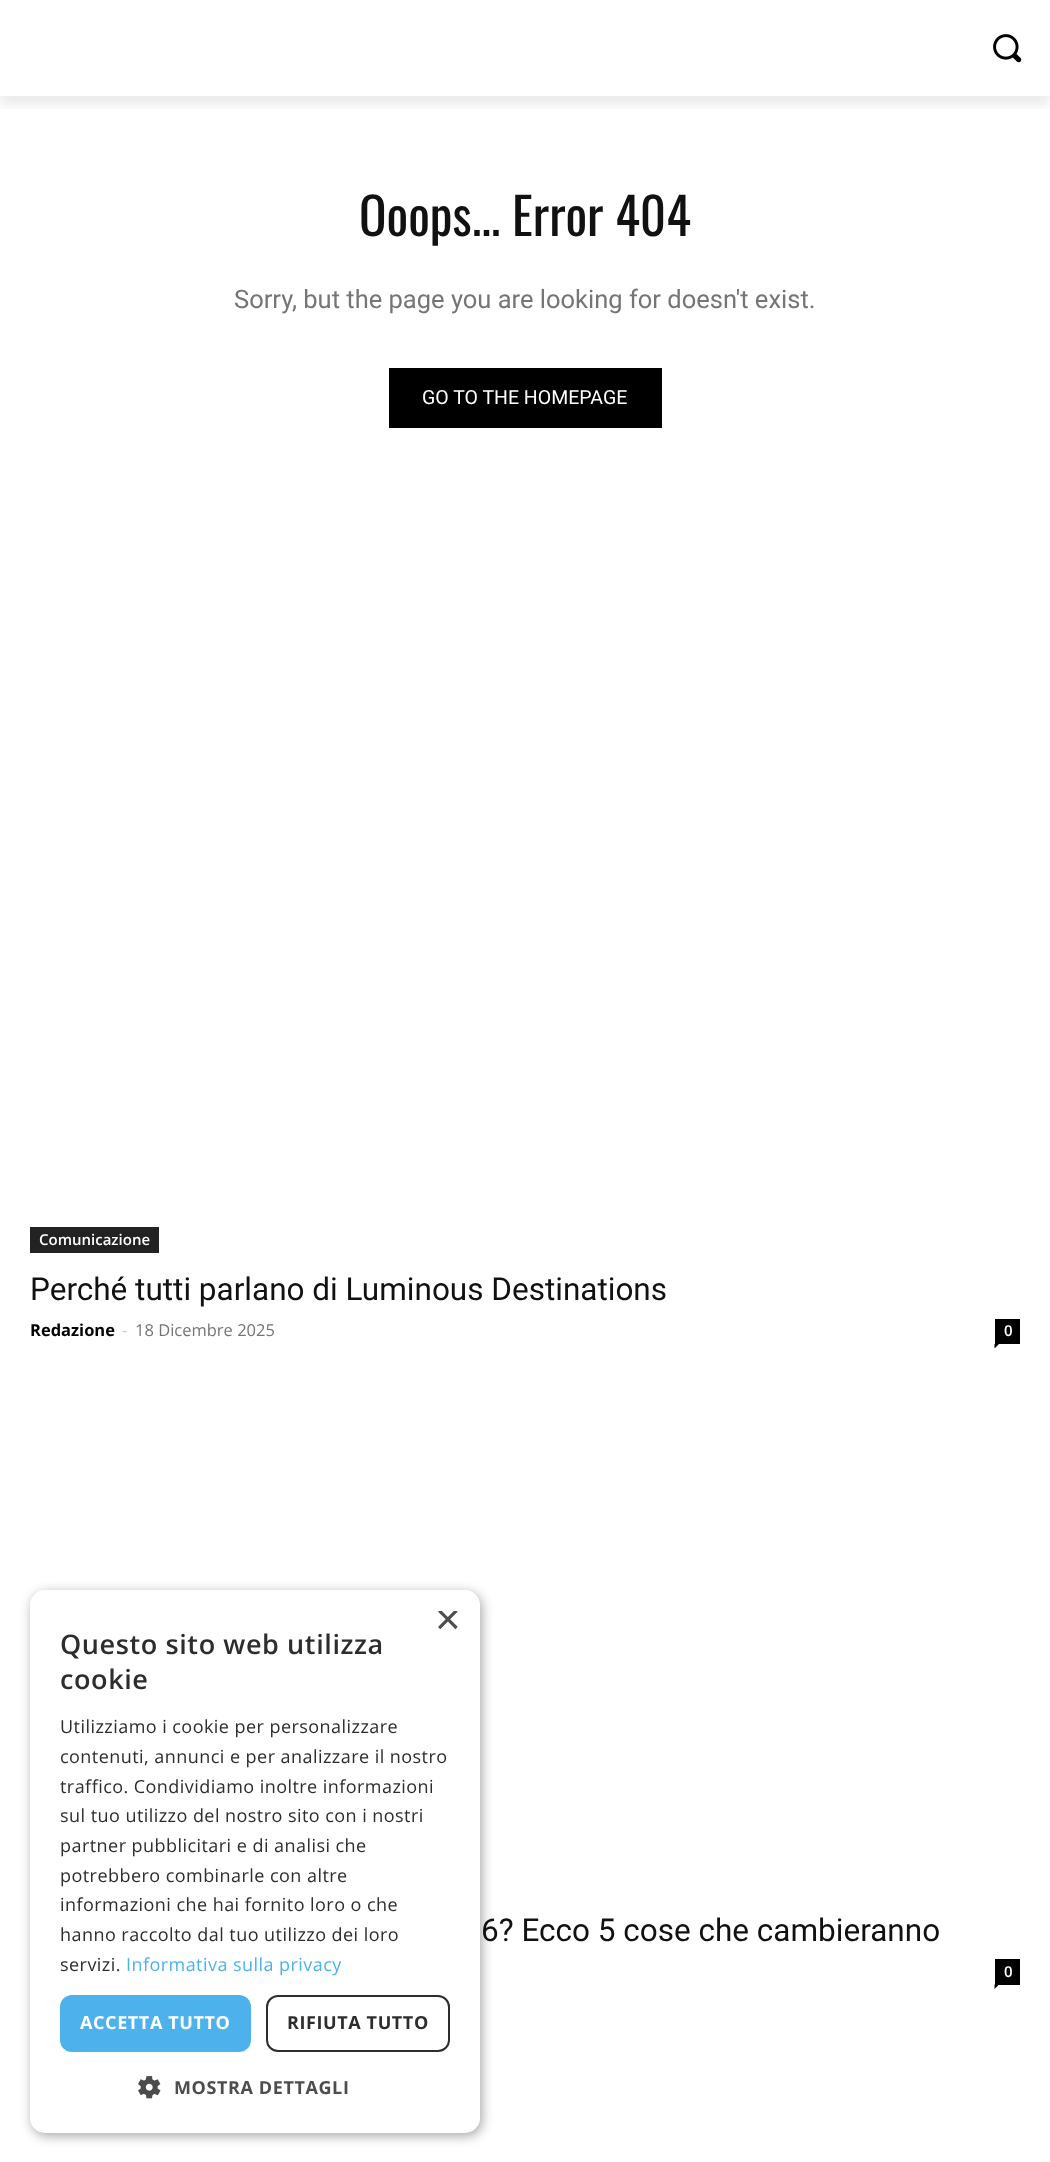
<svg xmlns="http://www.w3.org/2000/svg" width="1050" height="2162" viewBox="0 0 1050 2162">
  <defs>
    <clipPath id="clip1"><rect x="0" y="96" width="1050" height="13"/></clipPath>
    <filter id="blur1" x="-50%" y="-200%" width="200%" height="500%"><feGaussianBlur stdDeviation="6"/></filter>
    <clipPath id="clip2"><rect x="435" y="1611" width="23" height="23"/></clipPath>
  </defs>
  <rect width="100%" height="100%" fill="#ffffff"/>
  <image x="993" y="34" width="29" height="29" href="img1.png"/>
  <g clip-path="url(#clip1)">
    <rect x="0" y="9" width="1050" height="96" fill="#000000" fill-opacity="0.08" filter="url(#blur1)"/>
  </g>
  <text x="359" y="236" font-family="Oswald" font-size="51" fill="#111111">Ooops... Error 404</text>
  <text x="234" y="308" font-family="Roboto" font-size="25.5" fill="#757575">Sorry, but the page you are looking for doesn't exist.</text>
  <rect x="389" y="368" width="273" height="60" fill="#000000"/>
  <text x="422" y="404" font-family="Roboto" font-size="19.5" fill="#ffffff">GO TO THE HOMEPAGE</text>
  <rect x="30" y="1227" width="129" height="26" fill="#222222"/>
  <text x="39" y="1245" font-family="Open Sans" font-size="15" font-weight="600" fill="#ffffff">Comunicazione</text>
  <text x="30" y="1300" font-family="Roboto" font-size="31.5" fill="#111111">Perché tutti parlano di Luminous Destinations</text>
  <text x="30" y="1336" font-family="Open Sans" font-size="16.5" font-weight="bold" fill="#000000">Redazione</text>
  <text x="122" y="1336" font-family="Open Sans" font-size="16.5" fill="#cccccc">-</text>
  <text x="135" y="1336" font-family="Open Sans" font-size="16.5" fill="#757575">18 Dicembre 2025</text>
  <rect x="995" y="1319" width="25" height="25" fill="#000000"/>
  <text x="1004" y="1336" font-family="Open Sans" font-size="15" font-weight="600" fill="#ffffff">0</text>
  <path d="M994.5 1344H999L994.5 1348.5Z" fill="#000000"/>
  <text x="481" y="1941" font-family="Roboto" font-size="31.5" fill="#111111">6? Ecco 5 cose che cambieranno</text>
  <rect x="995" y="1959" width="25" height="26" fill="#000000"/>
  <text x="1004" y="1977" font-family="Open Sans" font-size="15" font-weight="600" fill="#ffffff">0</text>
  <path d="M994.5 1984.5H999L994.5 1989Z" fill="#000000"/>
  <rect x="32" y="1593" width="450" height="543" rx="15" fill="#000000" fill-opacity="0.35" filter="url(#blur1)"/>
  <rect x="30" y="1590" width="450" height="543" rx="15" fill="#ffffff"/>
  <g clip-path="url(#clip2)">
    <text x="435" y="1634" font-family="Liberation Sans" font-size="44" fill="#4d4d4d">×</text>
  </g>
  <text x="60" y="1654" font-family="Open Sans" font-size="27" font-weight="600" letter-spacing="0.6" fill="#2d2d2d">Questo sito web utilizza</text>
  <text x="60" y="1689" font-family="Open Sans" font-size="27" font-weight="600" letter-spacing="0.6" fill="#2d2d2d">cookie</text>
  <text x="60" y="1733" font-family="Open Sans" font-size="18" letter-spacing="0.45" fill="#2d2d2d">Utilizziamo i cookie per personalizzare</text>
  <text x="60" y="1763" font-family="Open Sans" font-size="18" letter-spacing="0.45" fill="#2d2d2d">contenuti, annunci e per analizzare il nostro</text>
  <text x="60" y="1793" font-family="Open Sans" font-size="18" letter-spacing="0.45" fill="#2d2d2d">traffico. Condividiamo inoltre informazioni</text>
  <text x="60" y="1822" font-family="Open Sans" font-size="18" letter-spacing="0.45" fill="#2d2d2d">sul tuo utilizzo del nostro sito con i nostri</text>
  <text x="60" y="1852" font-family="Open Sans" font-size="18" letter-spacing="0.45" fill="#2d2d2d">partner pubblicitari e di analisi che</text>
  <text x="60" y="1882" font-family="Open Sans" font-size="18" letter-spacing="0.45" fill="#2d2d2d">potrebbero combinarle con altre</text>
  <text x="60" y="1911" font-family="Open Sans" font-size="18" letter-spacing="0.45" fill="#2d2d2d">informazioni che hai fornito loro o che</text>
  <text x="60" y="1941" font-family="Open Sans" font-size="18" letter-spacing="0.45" fill="#2d2d2d">hanno raccolto dal tuo utilizzo dei loro</text>
  <text x="60" y="1971" font-family="Open Sans" font-size="18" letter-spacing="0.45" fill="#2d2d2d">servizi.</text>
  <text x="126" y="1971" font-family="Open Sans" font-size="18" letter-spacing="0.45" fill="#4db2ec">Informativa sulla privacy</text>
  <rect x="60" y="1995" width="191" height="57" rx="12" fill="#4db2ec"/>
  <text x="80" y="2029" font-family="Open Sans" font-size="18" font-weight="bold" letter-spacing="0.6" fill="#ffffff">ACCETTA TUTTO</text>
  <rect x="267" y="1996" width="182" height="55" rx="11" fill="none" stroke="#2d2d2d" stroke-width="2"/>
  <text x="287" y="2029" font-family="Open Sans" font-size="18" font-weight="bold" letter-spacing="0.6" fill="#2d2d2d">RIFIUTA TUTTO</text>
  <image x="138" y="2076" width="23" height="23" href="img2.png"/>
  <text x="174" y="2094" font-family="Open Sans" font-size="18" font-weight="bold" letter-spacing="0.6" fill="#4d4d4d">MOSTRA DETTAGLI</text>
</svg>
